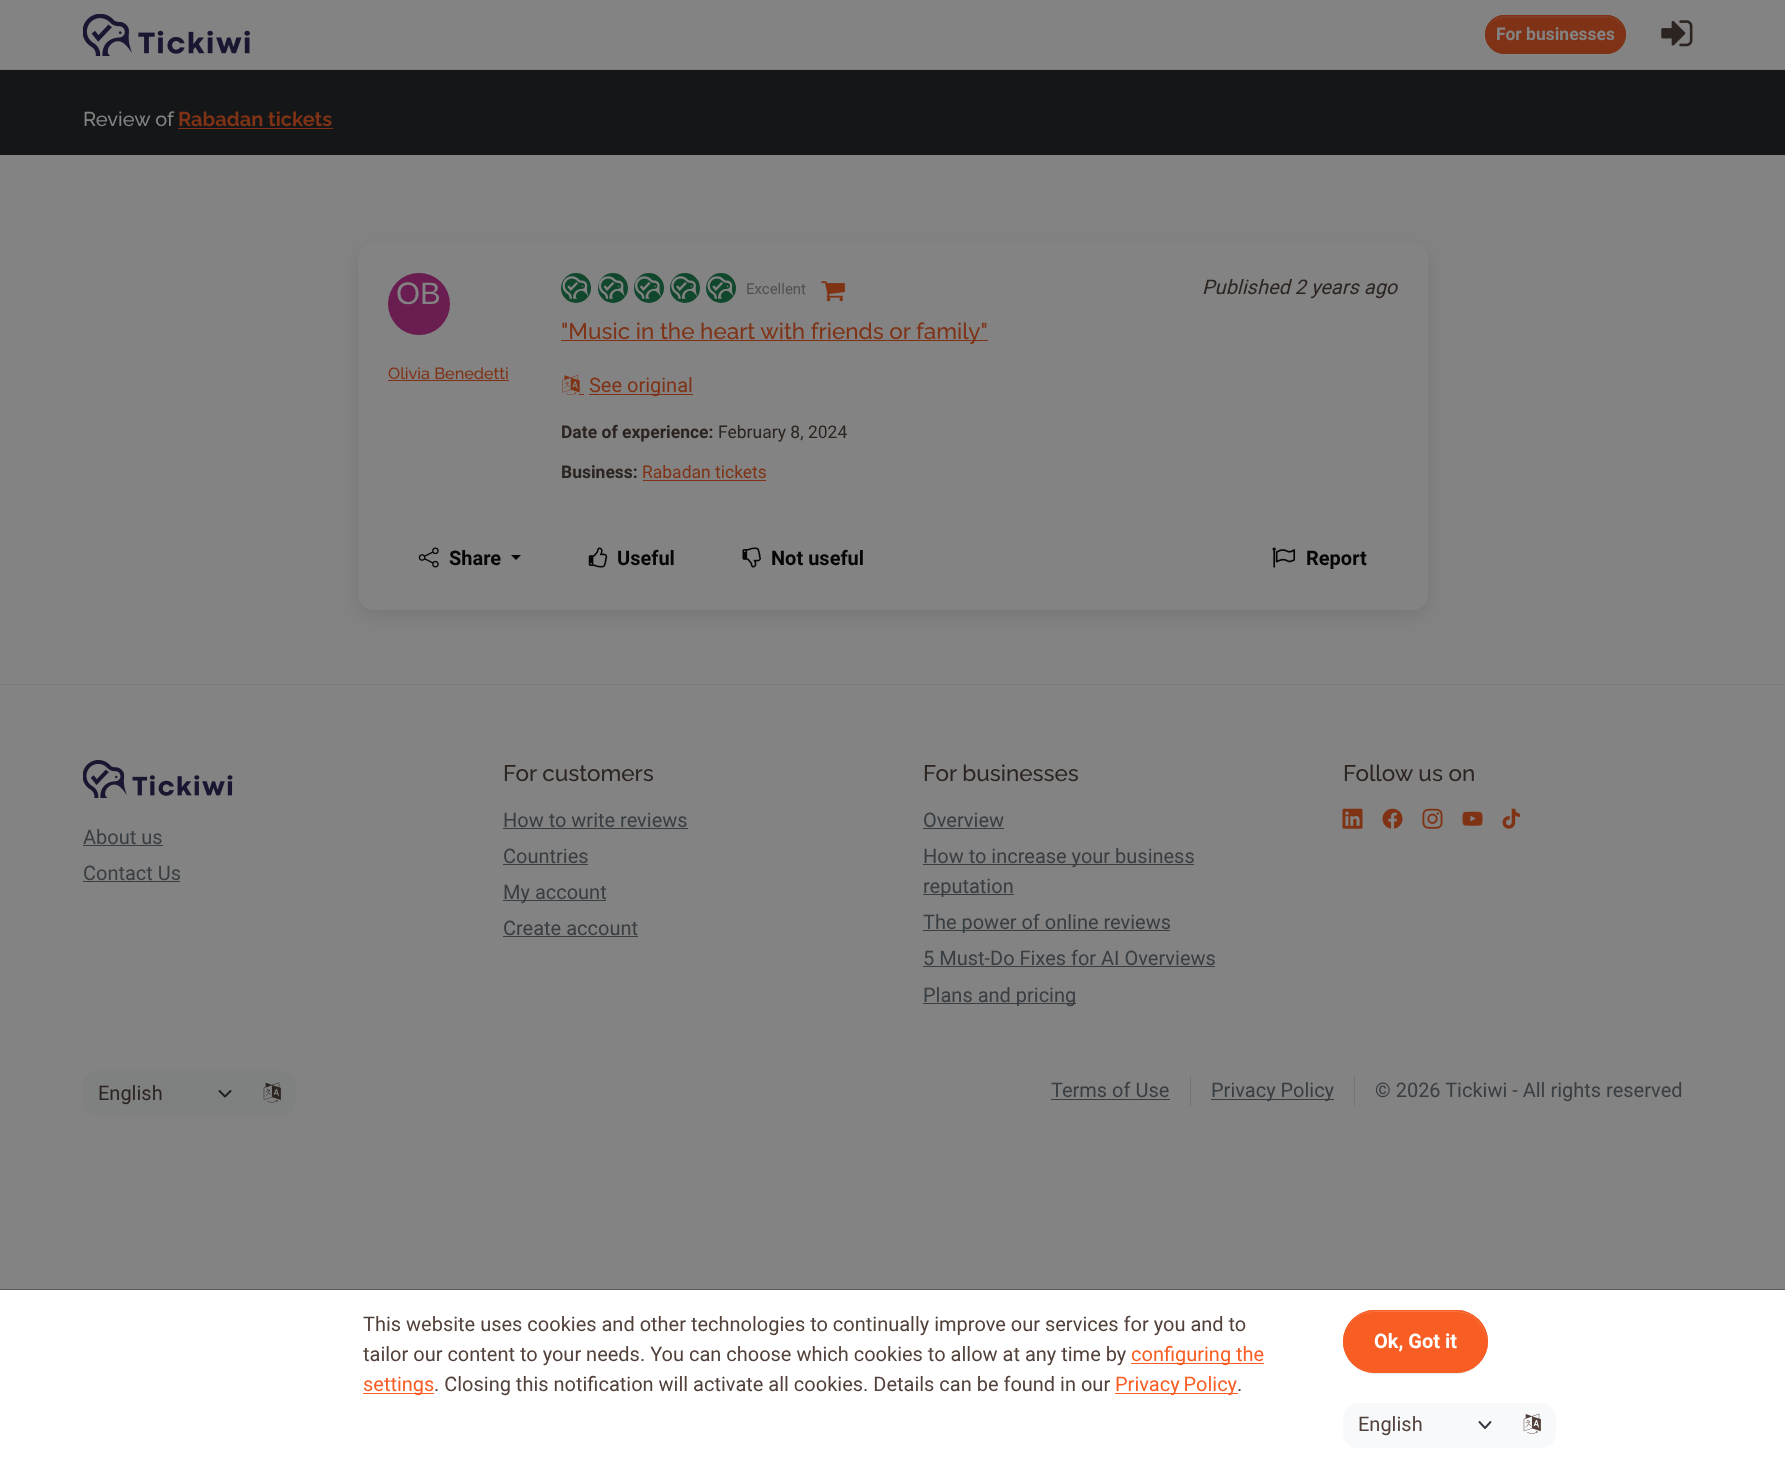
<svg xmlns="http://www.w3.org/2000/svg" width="1785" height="1467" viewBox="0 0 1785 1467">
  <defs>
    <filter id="blur1" x="-50%" y="-200%" width="200%" height="500%"><feGaussianBlur stdDeviation="9.5"/></filter>
    <clipPath id="clip1"><rect x="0" y="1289" width="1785" height="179"/></clipPath>
    <filter id="blur2" x="-50%" y="-200%" width="200%" height="500%"><feGaussianBlur stdDeviation="0.5"/></filter>
  </defs>
  <rect width="100%" height="100%" fill="#838383"/>
  <rect x="0" y="69" width="1785" height="1" fill="#7a7a7a"/>
  <image x="83" y="14" width="167" height="42" href="img1.png"/>
  <rect x="1485" y="15" width="141" height="39" rx="19.5" fill="#7f3215"/>
  <path d="M1504 18H1607C1617 18 1625 26 1625 35V34C1625 24 1617 16 1606 16H1504C1494 16 1486 24 1486 34V35C1486 26 1494 18 1504 18Z" fill="#803e25"/>
  <rect x="1485.5" y="15.5" width="140" height="38" rx="19" fill="none" stroke="#7f3215"/>
  <text x="1496" y="40" font-family="Roboto" font-size="17.5" font-weight="bold" fill="#838383">For businesses</text>
  <image x="1661" y="20" width="32" height="27" href="img2.png"/>
  <rect x="0" y="70" width="1785" height="85" fill="#141618"/>
  <text x="83" y="126" font-family="Raleway" font-size="20" font-weight="100" fill="#838383">Review of</text>
  <text x="178" y="126" font-family="'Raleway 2'" font-size="20" font-weight="100" fill="#7f3215">Rabadan tickets</text>
  <rect x="178" y="128" width="155" height="1" fill="#7f3215"/>
  <rect x="358" y="249" width="1070" height="367" rx="15" fill="#030303" fill-opacity="0.1" filter="url(#blur1)"/>
  <rect x="358" y="243" width="1070" height="367" rx="15" fill="#838383"/>
  <circle cx="419" cy="304" r="31" fill="#691d50"/>
  <text x="396" y="304" font-family="Liberation Sans" font-size="31" fill="#838383">OB</text>
  <text x="388" y="379" font-family="Raleway" font-size="16.25" font-weight="100" fill="#7f3215">Olivia Benedetti</text>
  <rect x="388" y="380" width="121" height="1" fill="#7f3215"/>
  <image x="562" y="280" width="27" height="17" href="img7.png"/>
  <circle cx="576" cy="288" r="15" fill="#10472d"/>
  <image x="562" y="276" width="27" height="23" href="img3.png"/>
  <image x="598" y="277" width="5" height="11" href="img8.png"/>
  <circle cx="613" cy="288" r="15" fill="#10472d"/>
  <image x="598" y="276" width="27" height="23" href="img4.png"/>
  <image x="635" y="278" width="3" height="5" href="img9.png"/>
  <circle cx="649" cy="288" r="15" fill="#10472d"/>
  <image x="635" y="276" width="26" height="23" href="img5.png"/>
  <image x="671" y="280" width="2" height="3" href="img10.png"/>
  <circle cx="685" cy="288" r="15" fill="#10472d"/>
  <image x="671" y="276" width="27" height="23" href="img6.png"/>
  <image x="707" y="280" width="27" height="17" href="img7.png"/>
  <circle cx="721" cy="288" r="15" fill="#10472d"/>
  <image x="707" y="276" width="27" height="23" href="img3.png"/>
  <text x="746" y="294" font-family="Roboto" font-size="15" fill="#505050">Excellent</text>
  <image x="821" y="281" width="24" height="21" href="img11.png"/>
  <text x="1202" y="294" font-family="Roboto" font-size="20" font-style="italic" fill="#2c2420">Published 2 years ago</text>
  <rect x="561" y="340" width="427" height="1" fill="#7f3215"/>
  <text x="561" y="339" font-family="Raleway" font-size="22.5" font-weight="100" fill="#7f3215">"Music in the heart with friends or family"</text>
  <image x="562" y="375" width="18" height="20" href="img12.png"/>
  <rect x="579" y="394" width="5" height="1" fill="#7f3215"/>
  <rect x="589" y="394" width="104" height="1" fill="#7f3215"/>
  <text x="589" y="392" font-family="Roboto" font-size="20" fill="#7f3215">See original</text>
  <text x="561" y="438" font-family="Roboto" font-size="17.5" font-weight="bold" fill="#2c2420">Date of experience:</text>
  <text x="718" y="438" font-family="Roboto" font-size="17.5" fill="#2c2420">February 8, 2024</text>
  <text x="561" y="478" font-family="Roboto" font-size="17.5" font-weight="bold" fill="#2c2420">Business:</text>
  <text x="642" y="478" font-family="Roboto" font-size="17.5" fill="#7f3215">Rabadan tickets</text>
  <rect x="643" y="480" width="123" height="1" fill="#7f3215"/>
  <image x="418" y="547" width="21" height="21" href="img13.png"/>
  <text x="449" y="565" font-family="Roboto" font-size="20" font-weight="bold" fill="#060606">Share</text>
  <path d="M511 555H521L516 560Z" fill="#060606"/>
  <image x="588" y="547" width="20" height="21" href="img14.png"/>
  <text x="617" y="565" font-family="Roboto" font-size="20" font-weight="bold" fill="#060606">Useful</text>
  <image x="742" y="547" width="19" height="21" href="img15.png"/>
  <text x="771" y="565" font-family="Roboto" font-size="20" font-weight="bold" fill="#060606">Not useful</text>
  <image x="1272" y="547" width="24" height="21" href="img16.png"/>
  <text x="1306" y="565" font-family="Roboto" font-size="20" font-weight="bold" fill="#060606">Report</text>
  <rect x="0" y="684" width="1785" height="1" fill="#7a7a7a"/>
  <image x="83" y="760" width="150" height="38" href="img17.png"/>
  <text x="83" y="844" font-family="Roboto" font-size="20" fill="#393e42">About us</text>
  <rect x="83" y="845" width="80" height="1" fill="#393e42"/>
  <text x="83" y="880" font-family="Roboto" font-size="20" fill="#393e42">Contact Us</text>
  <rect x="83" y="881" width="97" height="1" fill="#393e42"/>
  <text x="503" y="781" font-family="Raleway" font-size="22.5" font-weight="100" fill="#2c2420">For customers</text>
  <text x="503" y="827" font-family="Roboto" font-size="20" fill="#393e42">How to write reviews</text>
  <rect x="503" y="828" width="185" height="1" fill="#393e42"/>
  <text x="503" y="863" font-family="Roboto" font-size="20" fill="#393e42">Countries</text>
  <rect x="503" y="864" width="85" height="1" fill="#393e42"/>
  <rect x="503" y="900" width="103" height="1" fill="#393e42"/>
  <text x="503" y="899" font-family="Roboto" font-size="20" fill="#393e42">My account</text>
  <text x="503" y="935" font-family="Roboto" font-size="20" fill="#393e42">Create account</text>
  <rect x="503" y="936" width="135" height="1" fill="#393e42"/>
  <text x="923" y="781" font-family="Raleway" font-size="22.5" font-weight="100" fill="#2c2420">For businesses</text>
  <text x="923" y="827" font-family="Roboto" font-size="20" fill="#393e42">Overview</text>
  <rect x="923" y="828" width="81" height="1" fill="#393e42"/>
  <rect x="923" y="864" width="271" height="1" fill="#393e42"/>
  <text x="923" y="863" font-family="Roboto" font-size="20" fill="#393e42">How to increase your business</text>
  <rect x="923" y="894" width="91" height="1" fill="#393e42"/>
  <text x="923" y="893" font-family="Roboto" font-size="20" fill="#393e42">reputation</text>
  <rect x="923" y="930" width="247" height="1" fill="#393e42"/>
  <text x="923" y="929" font-family="Roboto" font-size="20" fill="#393e42">The power of online reviews</text>
  <text x="923" y="965" font-family="Roboto" font-size="20" fill="#393e42">5 Must-Do Fixes for AI Overviews</text>
  <rect x="923" y="966" width="292" height="1" fill="#393e42"/>
  <rect x="923" y="1003" width="153" height="1" fill="#393e42"/>
  <text x="923" y="1002" font-family="Roboto" font-size="20" fill="#393e42">Plans and pricing</text>
  <text x="1343" y="781" font-family="Raleway" font-size="22.5" font-weight="100" fill="#2c2420">Follow us on</text>
  <image x="1342" y="808" width="21" height="21" href="img18.png"/>
  <image x="1382" y="808" width="21" height="21" href="img19.png"/>
  <image x="1422" y="808" width="21" height="21" href="img20.png"/>
  <image x="1462" y="811" width="21" height="15" href="img21.png"/>
  <image x="1502" y="808" width="18" height="21" href="img22.png"/>
  <rect x="83" y="1050" width="1620" height="1" fill="#808080"/>
  <path d="M249 1071H281C289.5 1071 296 1077.5 296 1086V1101C296 1109.5 289.5 1116 281 1116H249Z" fill="#7f8080"/>
  <path d="M98 1071H250V1116H98C89.5 1116 83 1109.5 83 1101V1086C83 1077.5 89.5 1071 98 1071Z" fill="#7f8080"/>
  <path d="M219.5 1091L225 1096.5L230.5 1091" fill="none" stroke="#1d2023" stroke-width="1.9" stroke-linecap="round" stroke-linejoin="round"/>
  <text x="98" y="1100" font-family="Roboto" font-size="20" fill="#2c2420">English</text>
  <image x="263" y="1082" width="18" height="21" href="img23.png"/>
  <rect x="1190" y="1076" width="1" height="30" fill="#727476"/>
  <text x="1051" y="1097" font-family="Roboto" font-size="20" fill="#393e42">Terms of Use</text>
  <rect x="1051" y="1099" width="119" height="1" fill="#393e42"/>
  <rect x="1354" y="1076" width="1" height="30" fill="#727476"/>
  <rect x="1211" y="1099" width="123" height="1" fill="#393e42"/>
  <text x="1211" y="1097" font-family="Roboto" font-size="20" fill="#393e42">Privacy Policy</text>
  <text x="1375" y="1097" font-family="Roboto" font-size="20" fill="#393e42">© 2026 Tickiwi - All rights reserved</text>
  <rect x="0" y="1289" width="1785" height="1" fill="#5b5b5b"/>
  <g clip-path="url(#clip1)">
    <rect x="0" y="1296" width="1785" height="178" fill="#000000" fill-opacity="0.1" filter="url(#blur1)"/>
  </g>
  <rect x="0" y="1290" width="1785" height="177" fill="#ffffff"/>
  <text x="363" y="1331" font-family="Roboto" font-size="20" fill="#52413a">This website uses cookies and other technologies to continually improve our services for you and to</text>
  <text x="363" y="1361" font-family="Roboto" font-size="20" fill="#52413a">tailor our content to your needs. You can choose which cookies to allow at any time by</text>
  <rect x="1131" y="1363" width="133" height="1" fill="#f85d23"/>
  <text x="1131" y="1361" font-family="Roboto" font-size="20" fill="#f85d23">configuring the</text>
  <rect x="363" y="1393" width="71" height="1" fill="#f85d23"/>
  <text x="363" y="1391" font-family="Roboto" font-size="20" fill="#f85d23">settings</text>
  <text x="434" y="1391" font-family="Roboto" font-size="20" fill="#52413a">. Closing this notification will activate all cookies. Details can be found in our</text>
  <rect x="1115" y="1393" width="123" height="1" fill="#f85d23"/>
  <text x="1115" y="1391" word-spacing="-1" font-family="Roboto" font-size="20" fill="#f85d23">Privacy Policy</text>
  <text x="1237" y="1391" font-family="Roboto" font-size="20" fill="#52413a">.</text>
  <rect x="1343" y="1311" width="145" height="63" rx="31.5" fill="#060606" fill-opacity="0.07" filter="url(#blur2)"/>
  <rect x="1343" y="1310" width="145" height="63" rx="31.5" fill="#f85d23"/>
  <path d="M1374 1312H1456C1473 1312 1486 1326 1486 1342V1341C1486 1324 1473 1311 1456 1311H1374C1357 1311 1344 1324 1344 1341V1342C1344 1326 1357 1312 1374 1312Z" fill="#f97544"/>
  <rect x="1343.5" y="1310.5" width="144" height="62" rx="31" fill="none" stroke="#f85d23"/>
  <text x="1374" y="1348" font-family="Roboto" font-size="20" font-weight="bold" fill="#ffffff">Ok, Got it</text>
  <path d="M1509 1403H1541C1549.5 1403 1556 1409.5 1556 1418V1433C1556 1441.5 1549.5 1448 1541 1448H1509Z" fill="#f8f9fa"/>
  <path d="M1358 1403H1510V1448H1358C1349.5 1448 1343 1441.5 1343 1433V1418C1343 1409.5 1349.5 1403 1358 1403Z" fill="#f8f9fa"/>
  <path d="M1479.5 1422L1485 1428L1490.5 1422" fill="none" stroke="#343a40" stroke-width="1.9" stroke-linecap="round" stroke-linejoin="round"/>
  <text x="1358" y="1431" font-family="Roboto" font-size="20" fill="#52413a">English</text>
  <image x="1523" y="1413" width="18" height="21" href="img24.png"/>
</svg>
